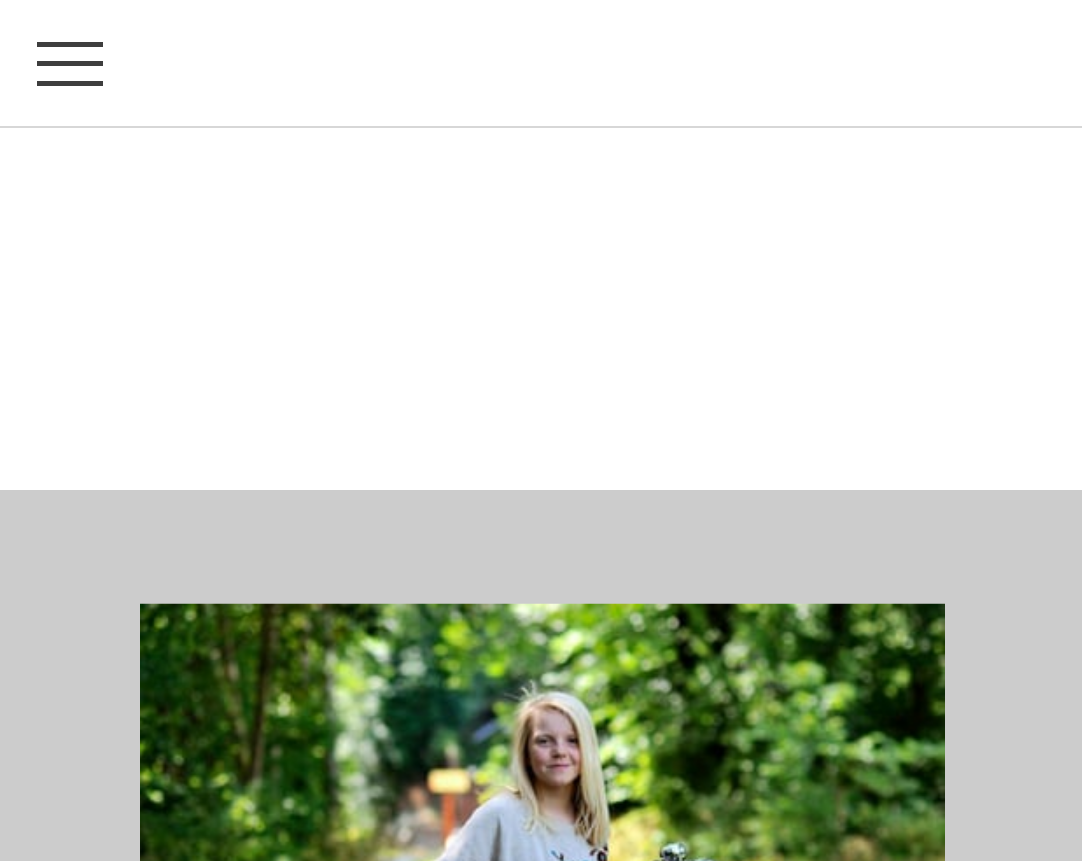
<svg xmlns="http://www.w3.org/2000/svg" width="1082" height="861" viewBox="0 0 1082 861">
  <rect width="100%" height="100%" fill="#ffffff"/>
  <rect x="0" y="126" width="1082" height="2" fill="#d7d7d7"/>
  <rect x="37" y="61" width="66" height="5" fill="#3e3e3e"/>
  <rect x="37" y="42" width="66" height="5" fill="#3e3e3e"/>
  <rect x="37" y="81" width="66" height="5" fill="#3e3e3e"/>
  <rect x="0" y="490" width="1082" height="371" fill="#cccccc"/>
  <image x="140" y="603" width="805" height="258" href="img1.png"/>
</svg>
